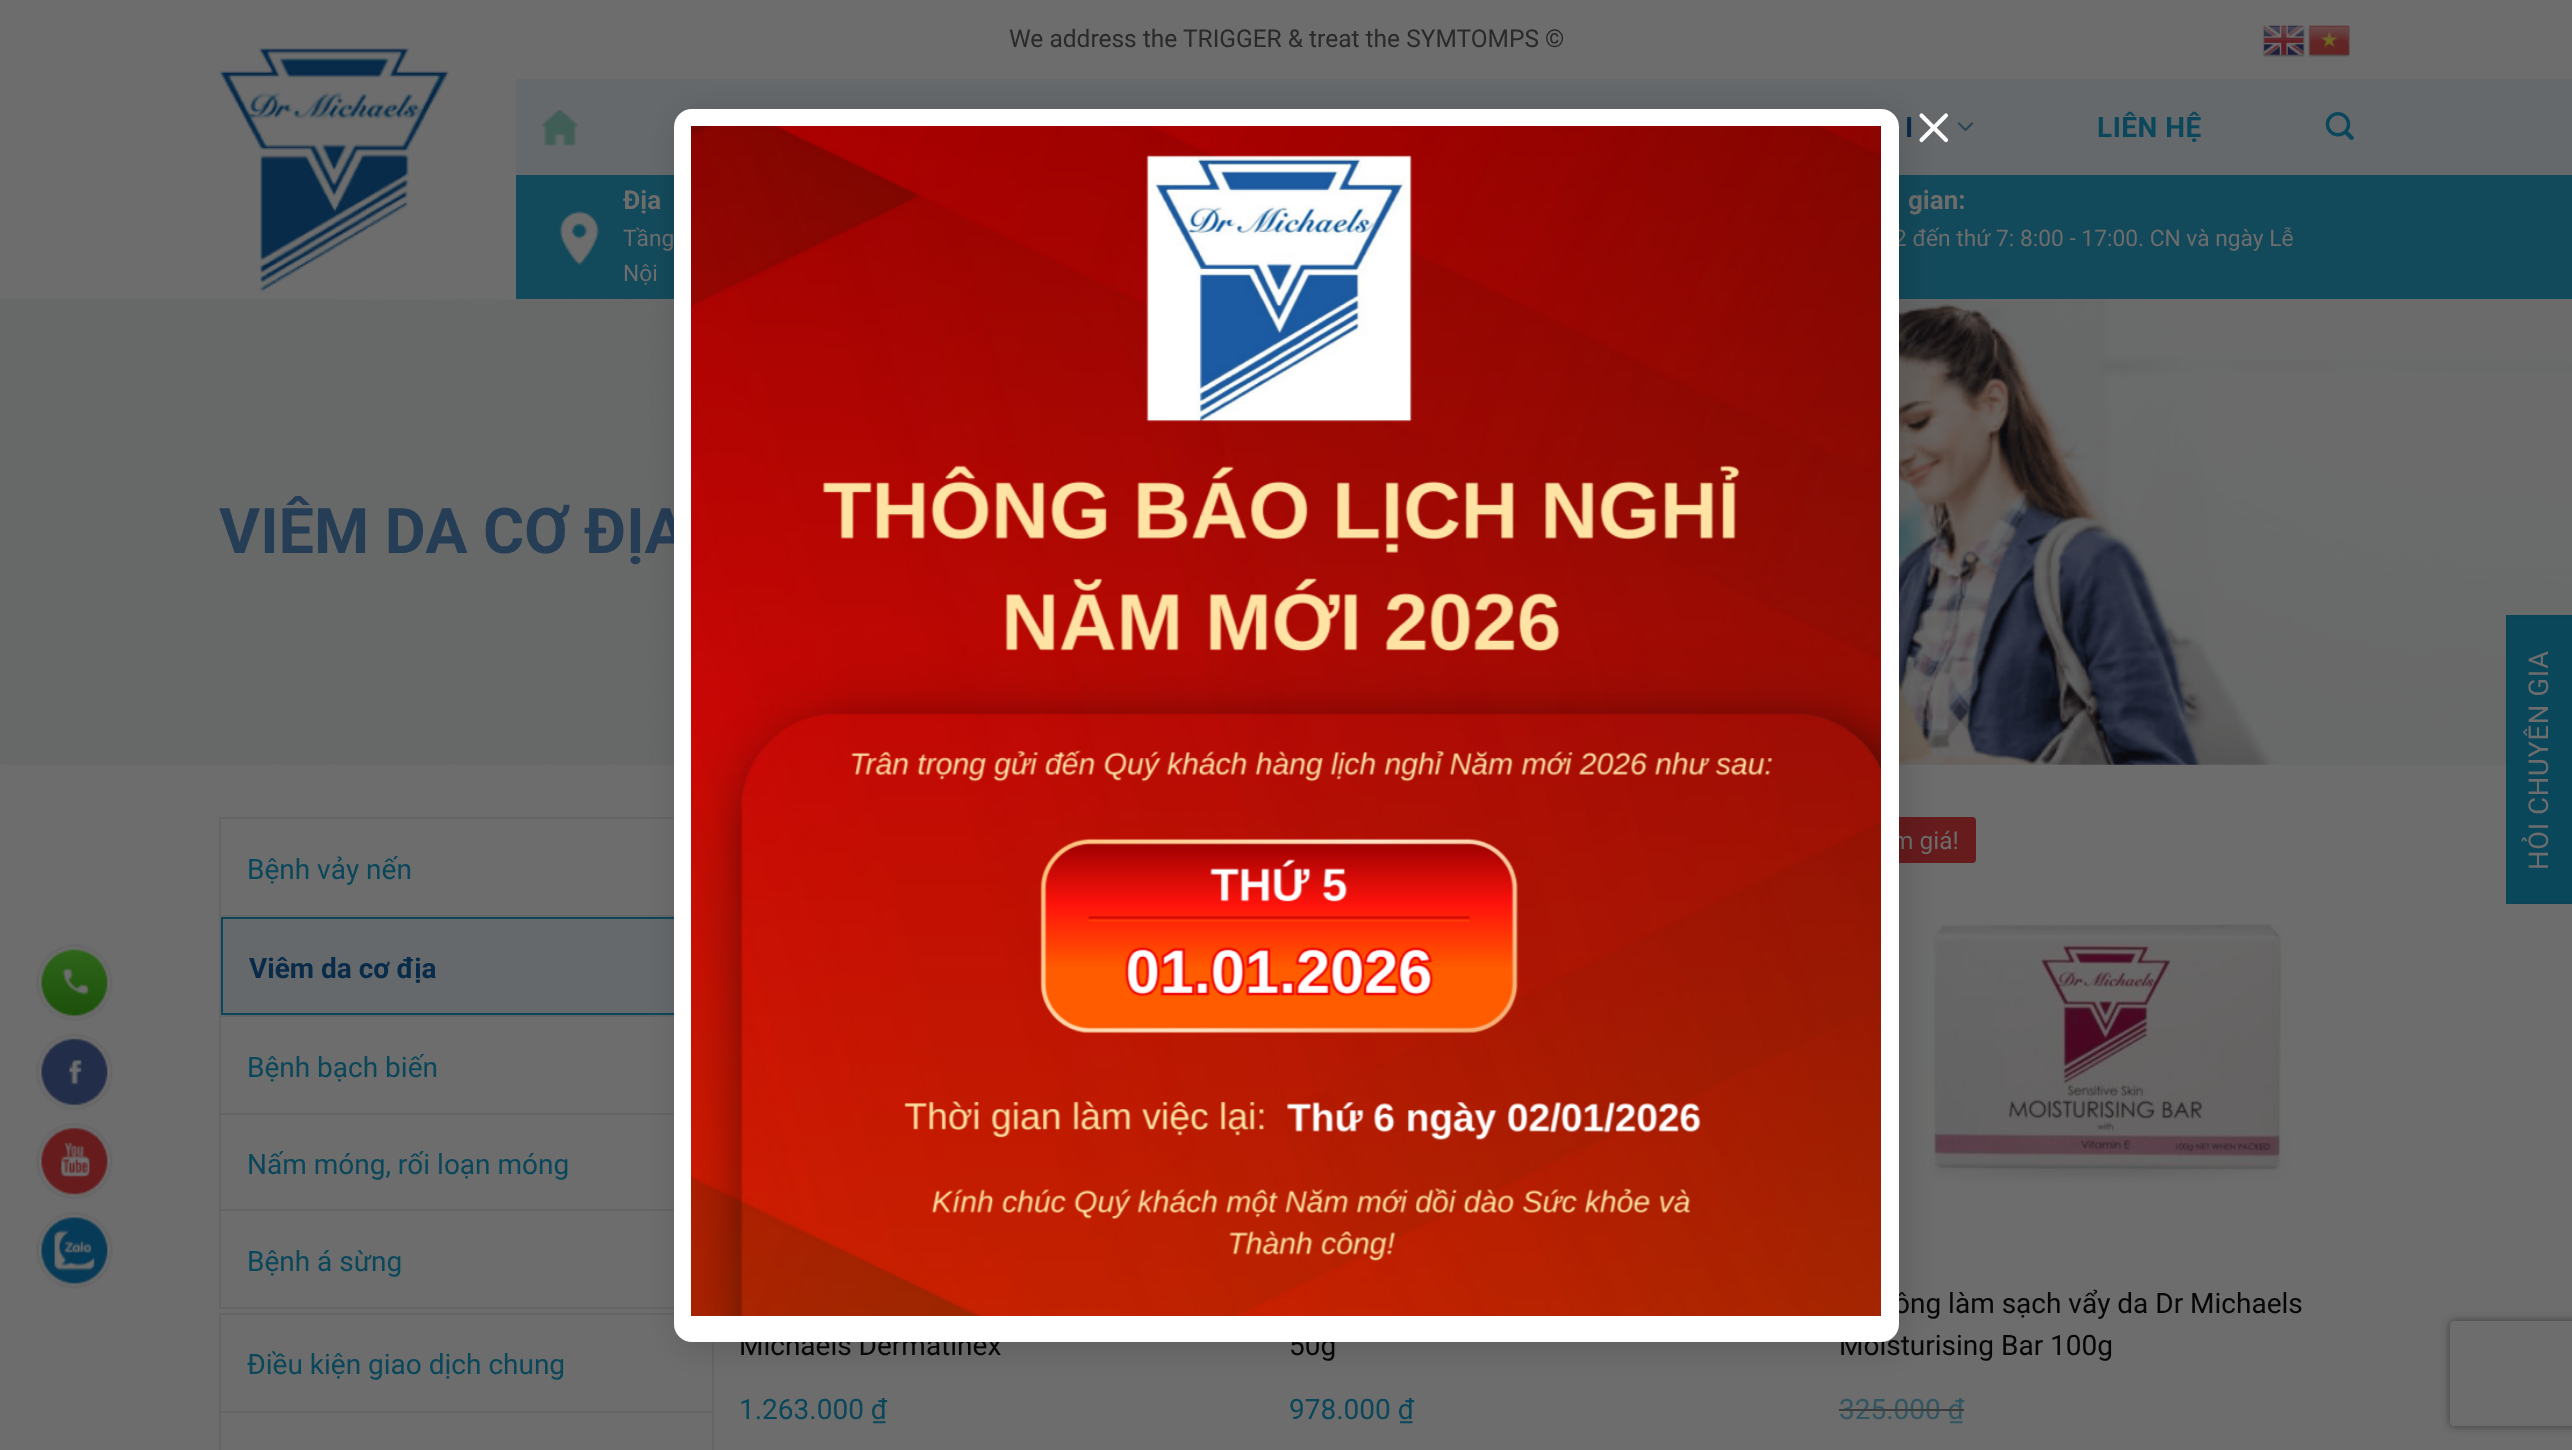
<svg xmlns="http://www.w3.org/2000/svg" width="2572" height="1450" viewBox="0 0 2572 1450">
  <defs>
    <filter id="blur1" x="-50%" y="-200%" width="200%" height="500%"><feGaussianBlur stdDeviation="17.5"/></filter>
    <clipPath id="clip1"><path d="M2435 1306H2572V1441H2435ZM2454 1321H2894C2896 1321 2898 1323 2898 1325V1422C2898 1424 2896 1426 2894 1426H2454C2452 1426 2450 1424 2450 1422V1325C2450 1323 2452 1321 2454 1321Z" clip-rule="evenodd"/></clipPath>
    <filter id="blur2" x="-50%" y="-200%" width="200%" height="500%"><feGaussianBlur stdDeviation="4.5"/></filter>
  </defs>
  <rect width="100%" height="100%" fill="#6d6d6d"/>
  <text x="1009" y="47" font-family="Roboto" font-size="24.5" fill="#2a2a2a">We address the TRIGGER &amp; treat the SYMTOMPS ©</text>
  <image x="2262" y="25" width="43" height="33" href="img1.png"/>
  <image x="2308" y="25" width="43" height="33" href="img2.png"/>
  <image x="220" y="47" width="229" height="245" href="img3.png"/>
  <rect x="516" y="79" width="2056" height="96" fill="#66696b"/>
  <image x="542" y="110" width="36" height="36" href="img4.png"/>
  <text x="1905" y="137" font-family="Roboto" font-size="28" font-weight="bold" letter-spacing="0.5" fill="#072b49">I</text>
  <image x="1957" y="122" width="17" height="10" href="img5.png"/>
  <text x="2097" y="137" font-family="Roboto" font-size="28" font-weight="bold" letter-spacing="0.5" fill="#0b475a">LIÊN HỆ</text>
  <image x="2325" y="112" width="29" height="28" href="img6.png"/>
  <rect x="516" y="175" width="158" height="124" fill="#134a5b"/>
  <image x="559" y="211" width="40" height="54" href="img7.png"/>
  <text x="623" y="209" font-family="Roboto" font-size="26" font-weight="bold" fill="#6d6d6d">Địa</text>
  <text x="623" y="246" font-family="Roboto" font-size="22.75" fill="#6d6d6d">Tầng</text>
  <text x="623" y="281" font-family="Roboto" font-size="22.75" fill="#6d6d6d">Nội</text>
  <rect x="1899" y="175" width="673" height="124" fill="#134a5b"/>
  <text x="1908" y="209" font-family="Roboto" font-size="26" font-weight="bold" fill="#6d6d6d">gian:</text>
  <text x="1894" y="246" font-family="Roboto" font-size="22.75" fill="#6d6d6d">2 đến thứ 7: 8:00 - 17:00. CN và ngày Lễ</text>
  <image x="0" y="299" width="2572" height="466" href="img8.png"/>
  <text x="219" y="553" font-family="Roboto" font-size="63" font-weight="bold" fill="#263d56">VIÊM DA CƠ ĐỊA</text>
  <rect x="220" y="818" width="493" height="490" fill="none" stroke="#656566" stroke-width="2"/>
  <text x="247" y="879" font-family="Roboto" font-size="28" fill="#0b475a">Bệnh vảy nến</text>
  <rect x="221" y="915" width="453" height="2" fill="#656565"/>
  <rect x="223" y="919" width="451" height="94" fill="#66696b"/>
  <rect x="221" y="917" width="453" height="2" fill="#0b475a"/>
  <rect x="221" y="1013" width="453" height="2" fill="#0b475a"/>
  <rect x="221" y="917" width="2" height="98" fill="#0b475a"/>
  <text x="249" y="978" font-family="Roboto" font-size="28" font-weight="bold" fill="#072b49">Viêm da cơ địa</text>
  <rect x="221" y="1015" width="453" height="2" fill="#656565"/>
  <text x="247" y="1077" font-family="Roboto" font-size="28" fill="#0b475a">Bệnh bạch biến</text>
  <rect x="221" y="1113" width="453" height="2" fill="#656565"/>
  <text x="247" y="1174" font-family="Roboto" font-size="28" fill="#0b475a">Nấm móng, rối loạn móng</text>
  <rect x="221" y="1209" width="453" height="2" fill="#656565"/>
  <text x="247" y="1271" font-family="Roboto" font-size="28" fill="#0b475a">Bệnh á sừng</text>
  <rect x="220" y="1314" width="493" height="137" fill="none" stroke="#656566" stroke-width="2"/>
  <text x="247" y="1374" font-family="Roboto" font-size="28" fill="#0b475a">Điều kiện giao dịch chung</text>
  <rect x="221" y="1411" width="491" height="2" fill="#656565"/>
  <text x="739" y="1355" font-family="Roboto" font-size="28" fill="#070707">Michaels Dermatinex</text>
  <text x="739" y="1419" font-family="Roboto" font-size="28" fill="#0b475a">1.263.000 ₫</text>
  <text x="1289" y="1355" font-family="Roboto" font-size="28" fill="#070707">50g</text>
  <text x="1289" y="1419" font-family="Roboto" font-size="28" fill="#0b475a">978.000 ₫</text>
  <rect x="1839" y="817" width="137" height="46" rx="4" fill="#661b1d"/>
  <text x="1892" y="849" font-family="Roboto" font-size="24.5" fill="#6d6d6d">m giá!</text>
  <image x="1922" y="924" width="370" height="259" href="img9.png"/>
  <text x="1894" y="1313" font-family="Roboto" font-size="28" fill="#070707">ông làm sạch vẩy da Dr Michaels</text>
  <text x="1839" y="1355" font-family="Roboto" font-size="28" fill="#070707">Moisturising Bar 100g</text>
  <text x="1839" y="1419" font-family="Roboto" font-size="28" fill="#325661">325.000 ₫</text>
  <rect x="1839" y="1409" width="125" height="2" fill="#3c3c3c"/>
  <rect x="679" y="114" width="1225" height="1234" rx="18" fill="#000000" fill-opacity="0.15" filter="url(#blur1)"/>
  <rect x="674" y="109" width="1225" height="1233" rx="18" fill="#ffffff"/>
  <image x="691" y="126" width="1190" height="1190" href="img10.png"/>
  <path d="M1946 115.5L1921.5 140M1921.5 115.5L1946 140" fill="none" stroke="#ffffff" stroke-width="4.1" stroke-linecap="round" stroke-linejoin="round"/>
  <rect x="2506" y="615" width="66" height="289" fill="#0b475a"/>
  <path d="M2507 903V616.5H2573.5V903Z" fill="none" stroke="#0b4456" stroke-width="1.8"/>
  <text x="2548" y="870" transform="rotate(-90 2548 870)" font-family="Roboto" font-size="27.25" letter-spacing="0.75" fill="#6d6d6d">HỎI CHUYÊN GIA</text>
  <image x="36" y="944" width="77" height="77" href="img11.png"/>
  <image x="36" y="1034" width="77" height="76" href="img12.png"/>
  <image x="36" y="1123" width="77" height="76" href="img13.png"/>
  <image x="36" y="1212" width="77" height="77" href="img14.png"/>
  <g clip-path="url(#clip1)">
    <rect x="2450" y="1321" width="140" height="105" rx="4" fill="#3a3a3a" filter="url(#blur2)"/>
  </g>
</svg>
